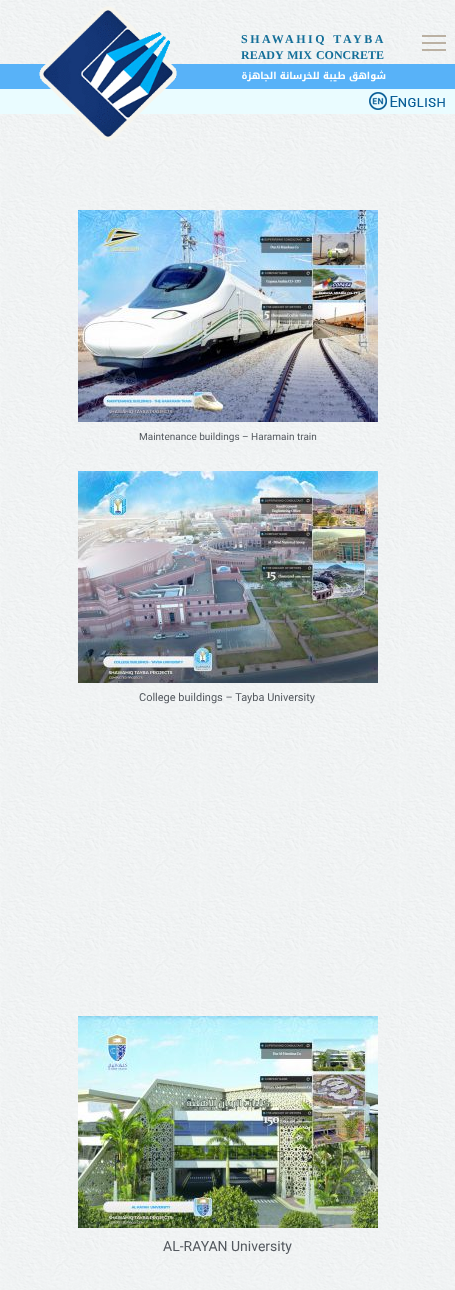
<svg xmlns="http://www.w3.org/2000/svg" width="455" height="1290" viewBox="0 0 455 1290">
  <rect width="100%" height="100%" fill="#ffffff"/>
  <image x="0" y="0" width="455" height="1290" href="img1.png"/>
  <rect x="0" y="64" width="455" height="25" fill="#58b2f8"/>
  <rect x="0" y="89" width="455" height="25" fill="#eafcff"/>
  <image x="39" y="6" width="138" height="135" href="img2.png"/>
  <rect x="422" y="42" width="24" height="2" fill="#bbb1a3"/>
  <rect x="422" y="35" width="24" height="2" fill="#bbb1a3"/>
  <rect x="422" y="49" width="24" height="2" fill="#bbb1a3"/>
  <text x="241" y="43" word-spacing="1" font-family="Liberation Serif" font-size="12" font-weight="bold" letter-spacing="2.5" fill="#146f99">SHAWAHIQ TAYBA</text>
  <text x="241" y="59" word-spacing="1" font-family="Liberation Serif" font-size="12" font-weight="bold" fill="#146f99">READY MIX CONCRETE</text>
  <text x="386" y="79" font-family="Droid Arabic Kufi" font-size="9.5" font-weight="bold" direction="rtl" fill="#ffffff">شواهق طيبة للخرسانة الجاهزة</text>
  <image x="369" y="92" width="76" height="18" href="img3.png"/>
  <image x="78" y="210" width="300" height="212" href="img4.png"/>
  <text x="139" y="440" font-family="Roboto" font-size="10" fill="#54595f">Maintenance buildings – Haramain train</text>
  <image x="78" y="471" width="300" height="212" href="img5.png"/>
  <text x="139" y="701" font-family="Roboto" font-size="11" fill="#54595f">College buildings – Tayba University</text>
  <image x="78" y="1016" width="300" height="212" href="img6.png"/>
  <text x="163" y="1251" font-family="Roboto" font-size="14" fill="#54595f">AL-RAYAN University</text>
</svg>
